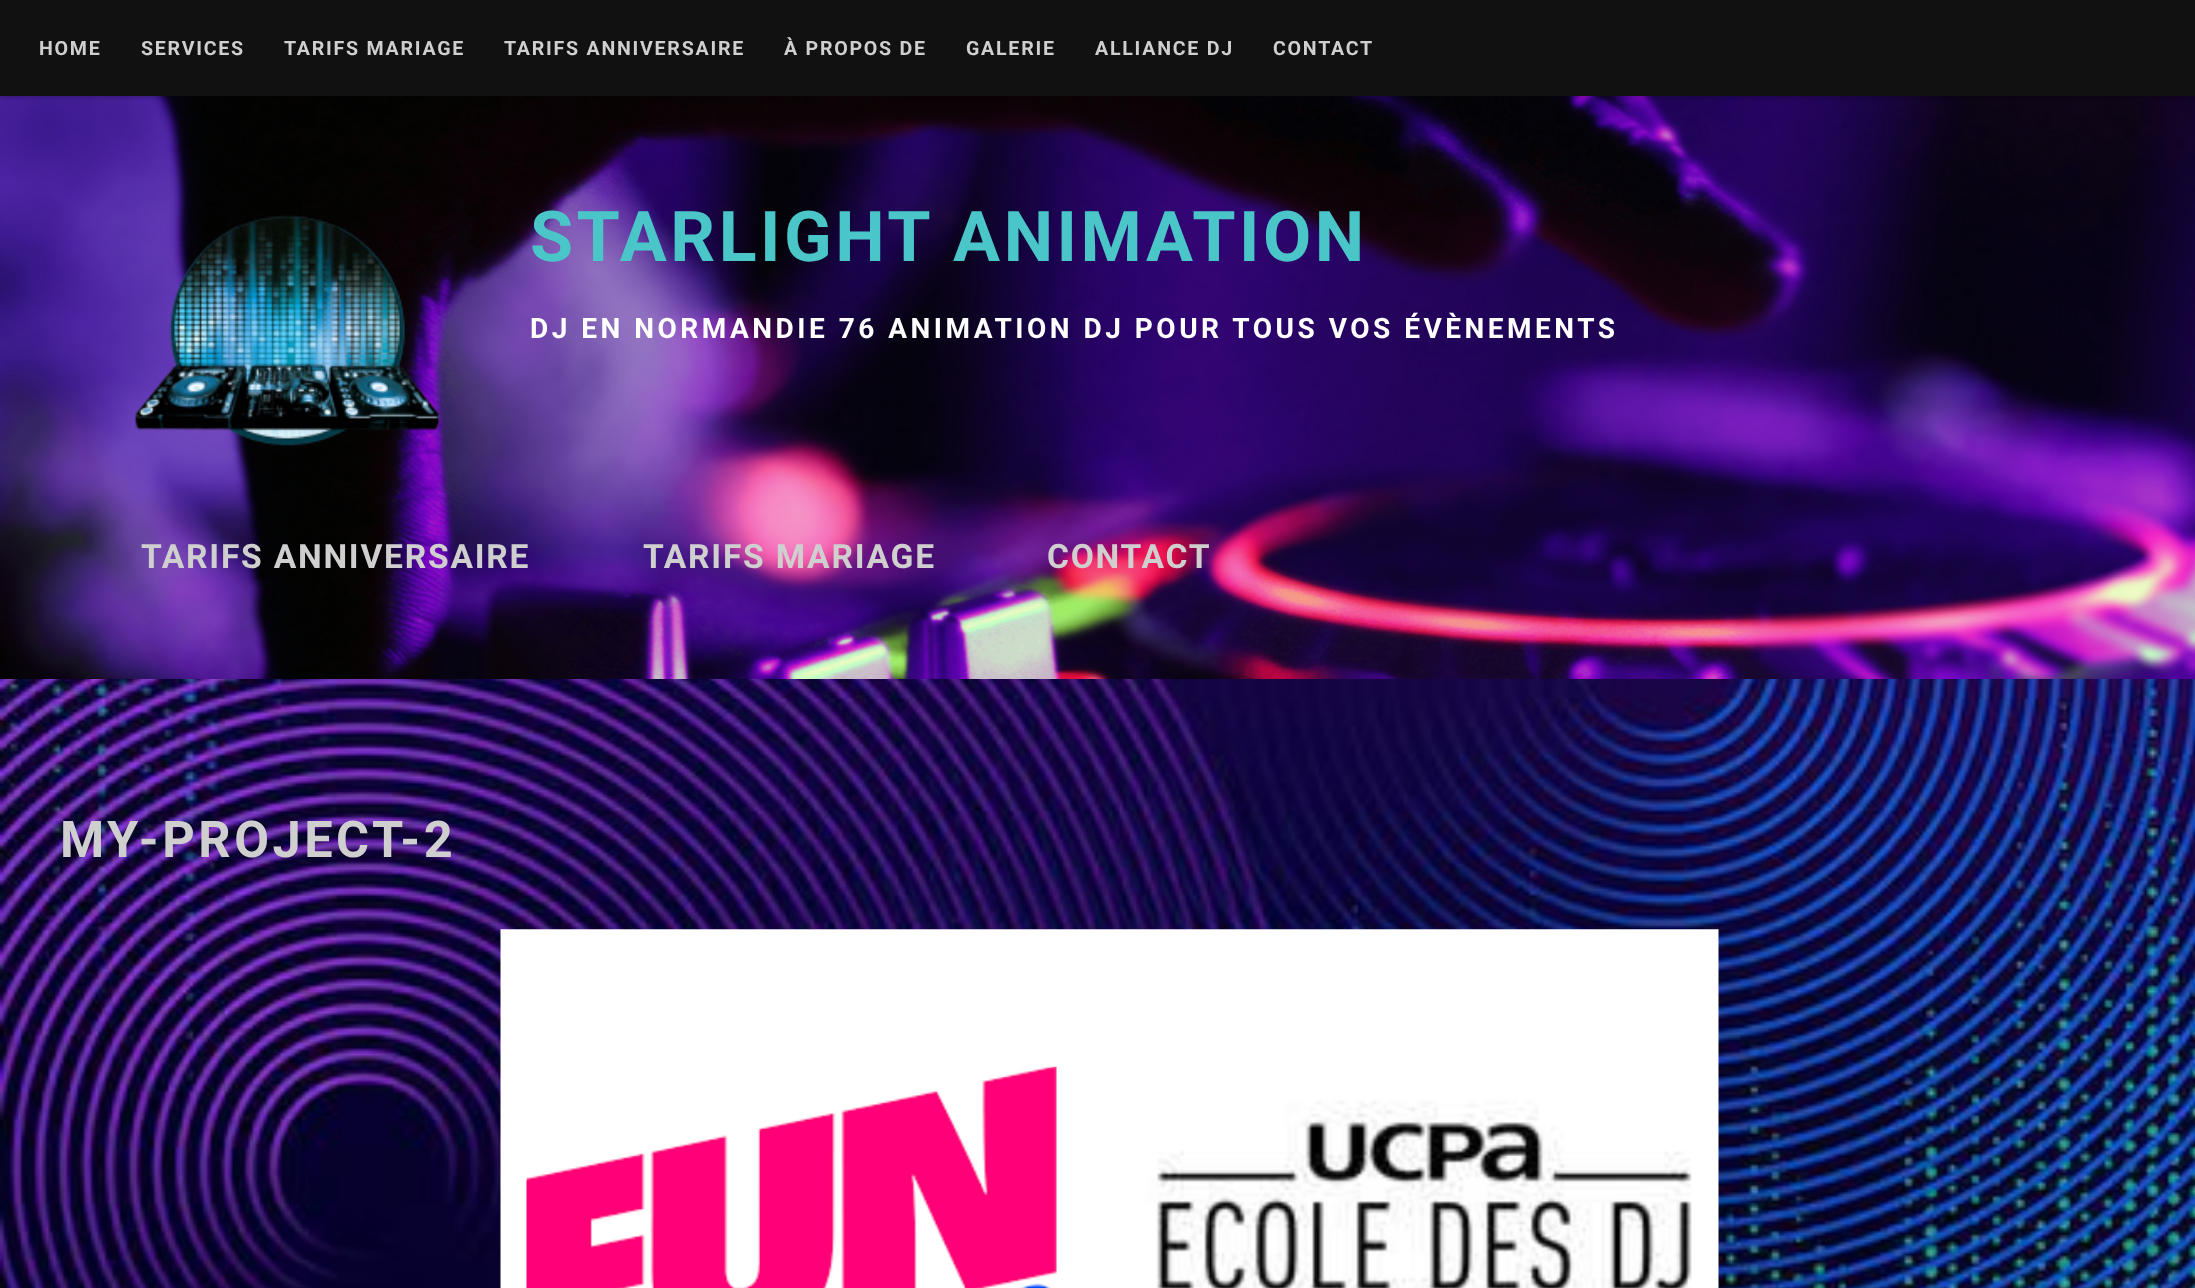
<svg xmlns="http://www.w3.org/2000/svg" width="2195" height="1288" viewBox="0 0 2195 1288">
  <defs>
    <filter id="blur1" x="-50%" y="-200%" width="200%" height="500%"><feGaussianBlur stdDeviation="2"/></filter>
  </defs>
  <rect width="100%" height="100%" fill="#ffffff"/>
  <image x="0" y="679" width="2195" height="609" href="img1.png"/>
  <image x="0" y="96" width="2195" height="583" href="img2.png"/>
  <rect x="0" y="2" width="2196" height="96" fill="#000000" fill-opacity="0.2" filter="url(#blur1)"/>
  <rect x="0" y="0" width="2195" height="96" fill="#111111"/>
  <text x="39" y="55" font-family="Roboto" font-size="19.6" font-weight="bold" letter-spacing="1.75" fill="#cfcfcf">HOME</text>
  <text x="141" y="55" font-family="Roboto" font-size="19.6" font-weight="bold" letter-spacing="1.75" fill="#cfcfcf">SERVICES</text>
  <text x="284" y="55" font-family="Roboto" font-size="19.6" font-weight="bold" letter-spacing="1.75" fill="#cfcfcf">TARIFS MARIAGE</text>
  <text x="504" y="55" font-family="Roboto" font-size="19.6" font-weight="bold" letter-spacing="1.75" fill="#cfcfcf">TARIFS ANNIVERSAIRE</text>
  <text x="784" y="55" font-family="Roboto" font-size="19.6" font-weight="bold" letter-spacing="1.75" fill="#cfcfcf">À PROPOS DE</text>
  <text x="966" y="55" font-family="Roboto" font-size="19.6" font-weight="bold" letter-spacing="1.75" fill="#cfcfcf">GALERIE</text>
  <text x="1095" y="55" font-family="Roboto" font-size="19.6" font-weight="bold" letter-spacing="1.75" fill="#cfcfcf">ALLIANCE DJ</text>
  <text x="1273" y="55" font-family="Roboto" font-size="19.6" font-weight="bold" letter-spacing="1.75" fill="#cfcfcf">CONTACT</text>
  <image x="134" y="215" width="307" height="231" href="img3.png"/>
  <text x="530" y="261" font-family="Roboto" font-size="70" font-weight="bold" letter-spacing="3.5" fill="#4ac6c9">STARLIGHT ANIMATION</text>
  <text x="530" y="338" font-family="Roboto" font-size="28" font-weight="bold" letter-spacing="3.5" fill="#ffffff">DJ EN NORMANDIE 76 ANIMATION DJ POUR TOUS VOS ÉVÈNEMENTS</text>
  <text x="141" y="568" font-family="Roboto" font-size="33.6" font-weight="bold" letter-spacing="1.75" fill="#cfcfcf">TARIFS ANNIVERSAIRE</text>
  <text x="643" y="568" font-family="Roboto" font-size="33.6" font-weight="bold" letter-spacing="1.75" fill="#cfcfcf">TARIFS MARIAGE</text>
  <text x="1047" y="568" font-family="Roboto" font-size="33.6" font-weight="bold" letter-spacing="1.75" fill="#cfcfcf">CONTACT</text>
  <text x="60" y="857" font-family="Roboto" font-size="50.5" font-weight="bold" letter-spacing="3.5" fill="#cfcfcf">MY-PROJECT-2</text>
  <image x="500" y="929" width="1219" height="359" href="img4.png"/>
</svg>
